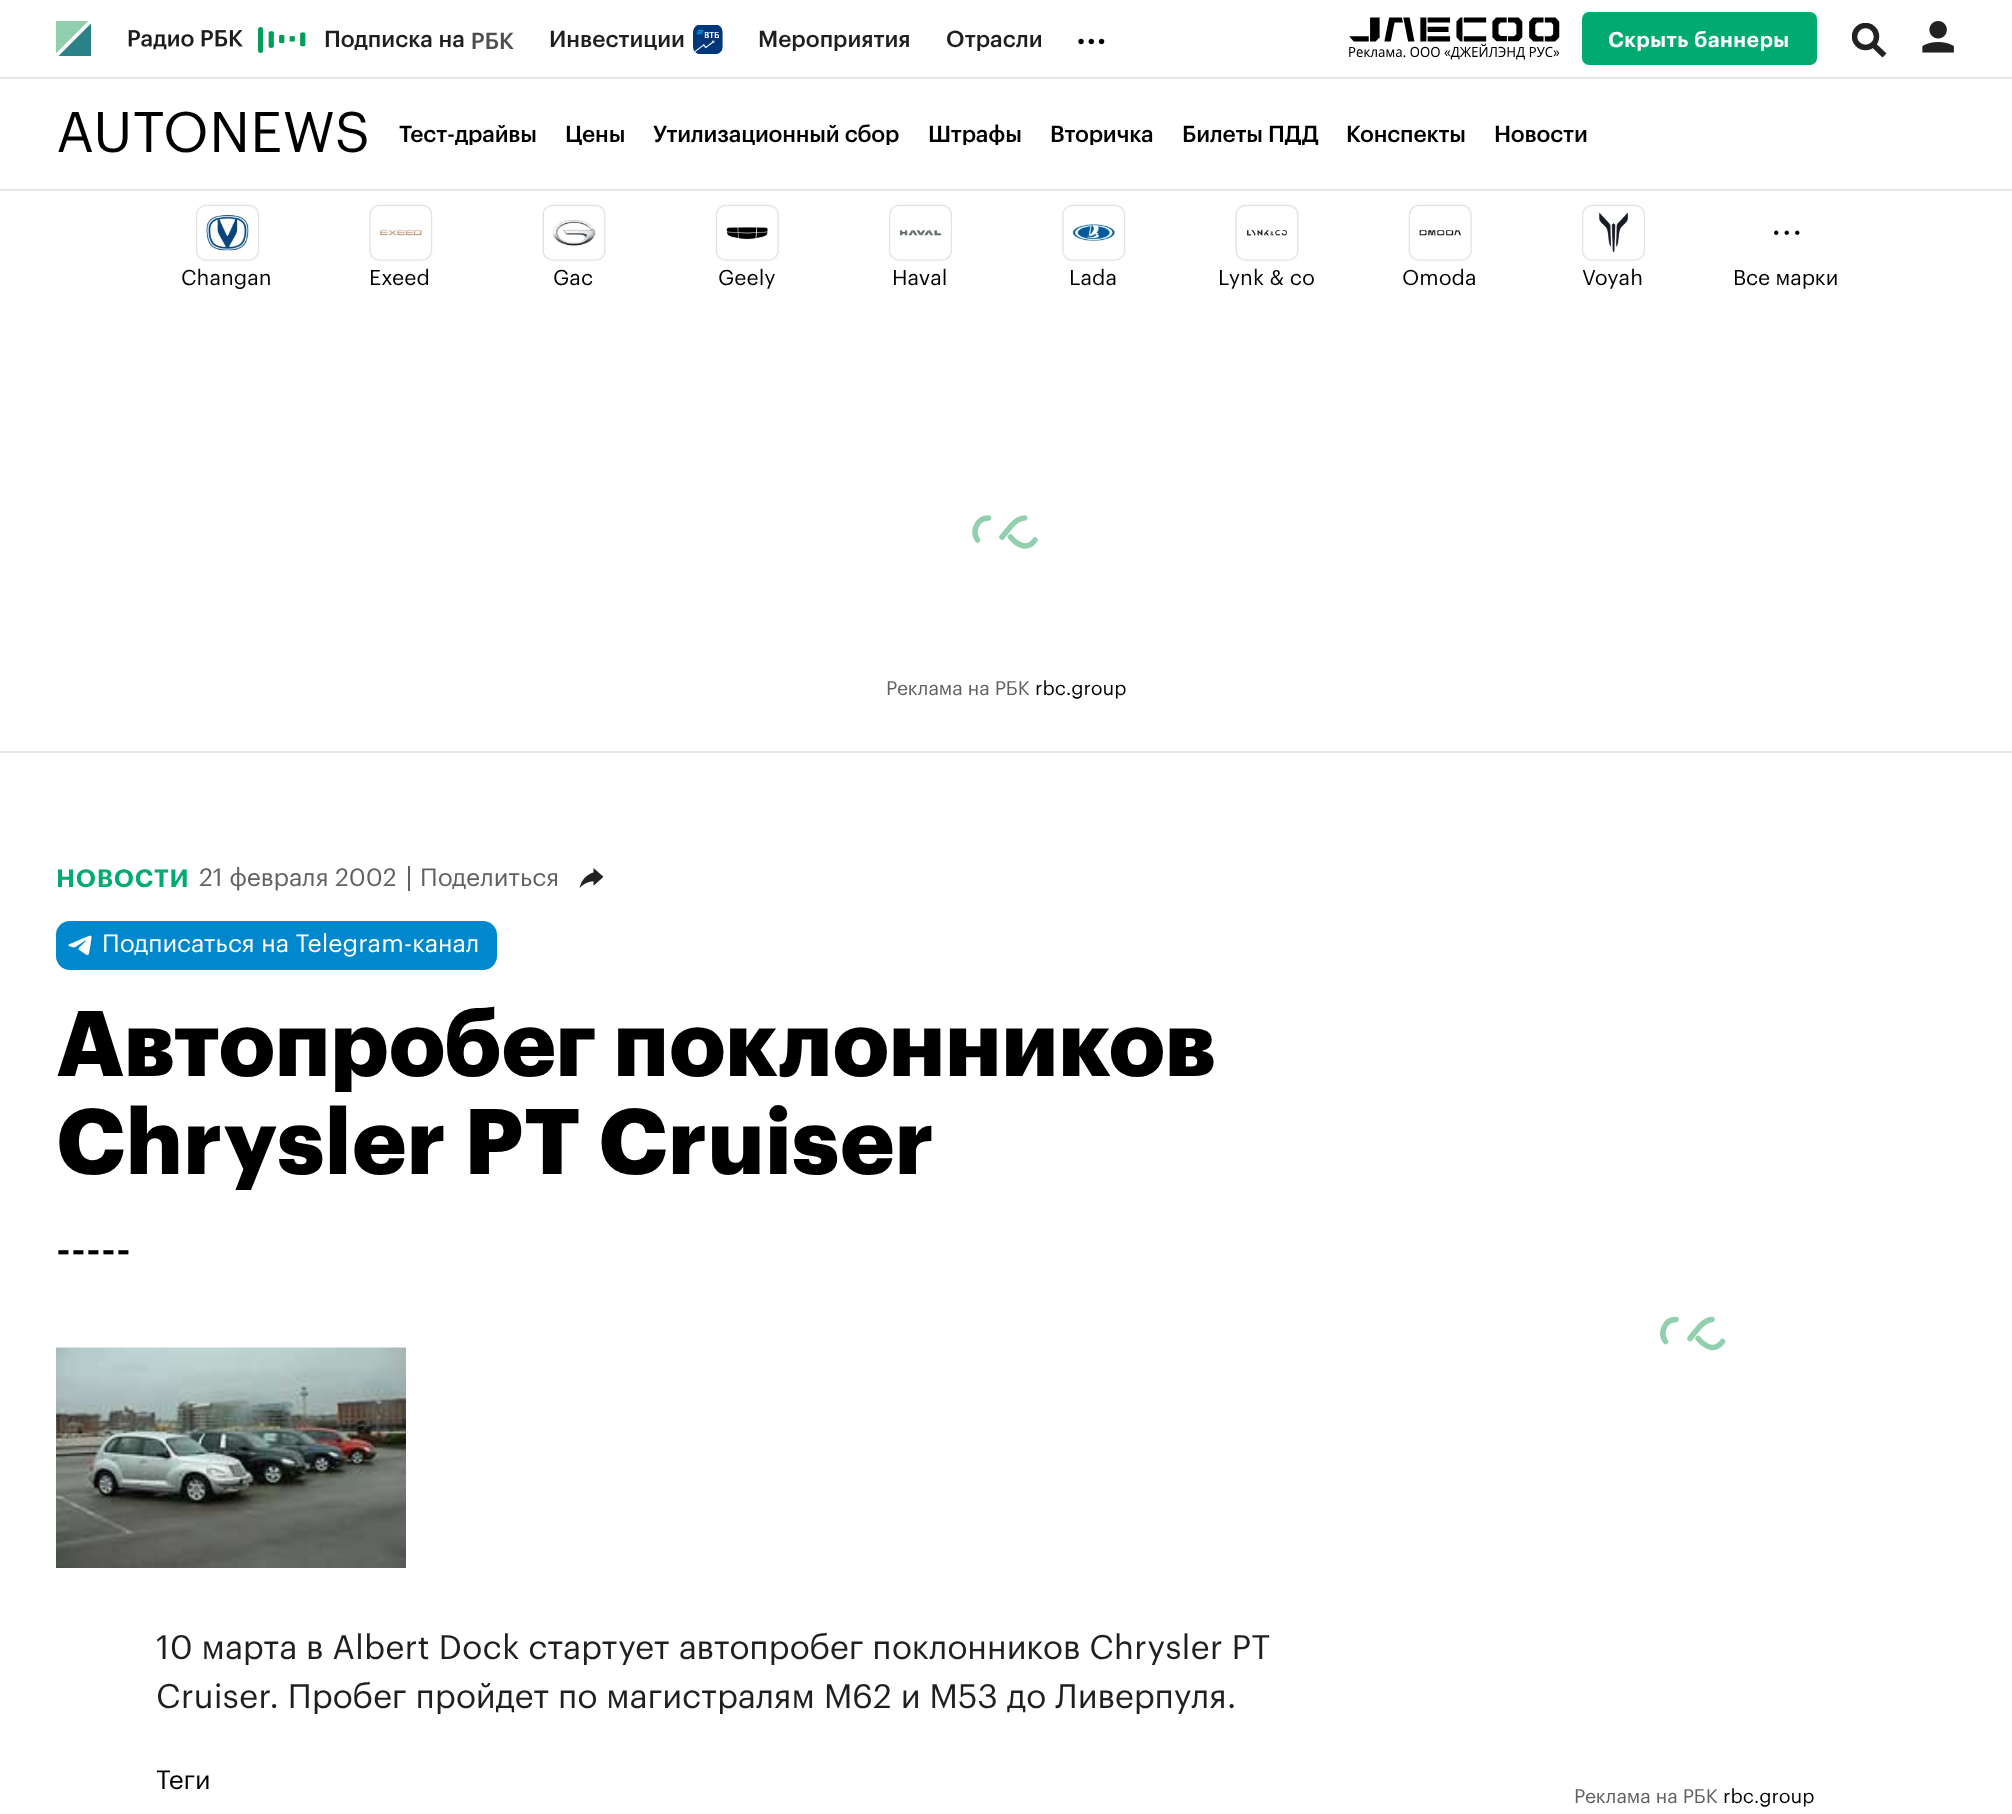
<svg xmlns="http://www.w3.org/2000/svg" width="2012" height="1814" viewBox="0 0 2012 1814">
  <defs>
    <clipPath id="clip1"><rect x="1852" y="23" width="35" height="35"/></clipPath>
    <clipPath id="clip2"><rect x="399" y="123" width="1216" height="22"/></clipPath>
  </defs>
  <rect width="100%" height="100%" fill="#ffffff"/>
  <rect x="0" y="77" width="2012" height="2" fill="#e6e6e6"/>
  <path d="M56 21V53.5L88.5 21Z" fill="#92cfae" fill-rule="evenodd"/>
  <path d="M58.5 56H91V23.5Z" fill="#2a8288" fill-rule="evenodd"/>
  <image x="128" y="27" width="178" height="26" href="img1.png"/>
  <text x="324" y="47" font-family="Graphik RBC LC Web" font-size="22.75" font-weight="500" fill="#1f1f1f">Подписка на</text>
  <image x="472" y="32" width="42" height="17" href="img2.png"/>
  <text x="549" y="47" font-family="Graphik RBC LC Web" font-size="22.75" font-weight="500" fill="#1f1f1f">Инвестиции</text>
  <image x="693" y="25" width="30" height="29" href="img3.png"/>
  <text x="758" y="47" font-family="Graphik RBC LC Web" font-size="22.75" font-weight="500" fill="#1f1f1f">Мероприятия</text>
  <text x="946" y="47" font-family="Graphik RBC LC Web" font-size="22.75" font-weight="500" fill="#1f1f1f">Отрасли</text>
  <text x="1076" y="44" font-family="Graphik RBC LC Web" font-size="35" font-weight="500" fill="#000000">...</text>
  <image x="1349" y="17" width="211" height="43" href="img4.png"/>
  <rect x="1582" y="12" width="235" height="53" rx="7" fill="#00aa70"/>
  <text x="1608" y="47" font-family="Graphik RBC LC Web" font-size="21" font-weight="600" letter-spacing="0.5" fill="#ffffff">Скрыть баннеры</text>
  <path d="M1886.5 53.5L1882.5 57.5L1868.5 44L1872.5 40Z" fill="#222222" fill-rule="evenodd"/>
  <circle cx="1865.5" cy="36.5" r="11" fill="#ffffff"/>
  <g clip-path="url(#clip1)">
    <circle cx="1865.5" cy="36.5" r="11" fill="none" stroke="#222222" stroke-width="5.5"/>
  </g>
  <image x="1922" y="21" width="32" height="32" href="img5.png"/>
  <rect x="0" y="189" width="2012" height="2" fill="#e6e6e6"/>
  <text x="56" y="152" font-family="Graphik RBC LC Web" font-size="56" fill="#000000">AUTONEWS</text>
  <g clip-path="url(#clip2)">
    <text x="399" y="142" font-family="Graphik RBC LC Web" font-size="22.75" font-weight="500" letter-spacing="-0.2" fill="#000000">Тест-драйвы</text>
  </g>
  <text x="565" y="142" font-family="Graphik RBC LC Web" font-size="22.75" font-weight="500" letter-spacing="-0.2" fill="#000000">Цены</text>
  <g clip-path="url(#clip2)">
    <text x="653" y="142" font-family="Graphik RBC LC Web" font-size="22.75" font-weight="500" letter-spacing="-0.2" fill="#000000">Утилизационный сбор</text>
    <text x="928" y="142" font-family="Graphik RBC LC Web" font-size="22.75" font-weight="500" letter-spacing="-0.2" fill="#000000">Штрафы</text>
    <text x="1050" y="142" font-family="Graphik RBC LC Web" font-size="22.75" font-weight="500" letter-spacing="-0.2" fill="#000000">Вторичка</text>
  </g>
  <text x="1182" y="142" font-family="Graphik RBC LC Web" font-size="22.75" font-weight="500" letter-spacing="-0.2" fill="#000000">Билеты ПДД</text>
  <text x="1346" y="142" font-family="Graphik RBC LC Web" font-size="22.75" font-weight="500" letter-spacing="-0.2" fill="#000000">Конспекты</text>
  <text x="1494" y="142" font-family="Graphik RBC LC Web" font-size="22.75" font-weight="500" letter-spacing="-0.2" fill="#000000">Новости</text>
  <image x="196" y="204" width="63" height="57" href="img6.png"/>
  <text x="181" y="285" font-family="Graphik RBC LC Web" font-size="21" fill="#000000">Changan</text>
  <image x="369" y="204" width="64" height="57" href="img7.png"/>
  <text x="369" y="285" font-family="Graphik RBC LC Web" font-size="21" fill="#000000">Exeed</text>
  <image x="542" y="204" width="64" height="57" href="img8.png"/>
  <text x="553" y="285" font-family="Graphik RBC LC Web" font-size="21" fill="#000000">Gac</text>
  <image x="715" y="204" width="64" height="57" href="img9.png"/>
  <text x="718" y="285" font-family="Graphik RBC LC Web" font-size="21" fill="#000000">Geely</text>
  <image x="889" y="204" width="63" height="57" href="img10.png"/>
  <text x="892" y="285" font-family="Graphik RBC LC Web" font-size="21" fill="#000000">Haval</text>
  <image x="1062" y="204" width="64" height="57" href="img11.png"/>
  <text x="1069" y="285" font-family="Graphik RBC LC Web" font-size="21" fill="#000000">Lada</text>
  <image x="1235" y="204" width="64" height="57" href="img12.png"/>
  <text x="1218" y="285" font-family="Graphik RBC LC Web" font-size="21" fill="#000000">Lynk &amp; co</text>
  <image x="1408" y="204" width="64" height="57" href="img13.png"/>
  <text x="1402" y="285" font-family="Graphik RBC LC Web" font-size="21" fill="#000000">Omoda</text>
  <image x="1582" y="204" width="63" height="57" href="img14.png"/>
  <text x="1582" y="285" font-family="Graphik RBC LC Web" font-size="21" fill="#000000">Voyah</text>
  <image x="1774" y="230" width="26" height="5" href="img15.png"/>
  <text x="1733" y="285" font-family="Graphik RBC LC Web" font-size="21" fill="#000000">Все марки</text>
  <rect x="0" y="751" width="2012" height="2" fill="#e6e6e6"/>
  <path d="M988.5 518C977 518 971.5 531.5 977.5 540M1002 537C1007.5 531 1015 518 1024.5 518M1035 540C1027.5 551 1017 545 1010.5 537" fill="none" stroke="#92cfae" stroke-width="5.6" stroke-linecap="round"/>
  <text x="886" y="695" font-family="Graphik RBC LC Web" font-size="19.25" fill="#616161">Реклама на РБК</text>
  <text x="1035" y="695" font-family="Graphik RBC LC Web" font-size="19.25" fill="#000000">rbc.group</text>
  <text x="56" y="887" font-family="Graphik RBC LC Web" font-size="24.5" font-weight="600" letter-spacing="1" fill="#00aa70">НОВОСТИ</text>
  <text x="199" y="886" font-family="Graphik RBC LC Web" font-size="24.5" fill="#616161">21 февраля 2002</text>
  <rect x="408" y="866" width="2" height="25" fill="#616161"/>
  <image x="579" y="868" width="25" height="20" href="img16.png"/>
  <text x="420" y="886" font-family="Graphik RBC LC Web" font-size="24.5" fill="#616161">Поделиться</text>
  <rect x="56" y="921" width="441" height="49" rx="14" fill="#0088cc"/>
  <image x="68" y="935" width="24" height="20" href="img17.png"/>
  <text x="102" y="952" font-family="Graphik RBC LC Web" font-size="24.5" fill="#ffffff">Подписаться на Telegram-канал</text>
  <text x="56" y="1076" font-family="Graphik RBC LC Web" font-size="91" font-weight="bold" letter-spacing="-0.2" fill="#000000">Автопробег поклонников</text>
  <text x="56" y="1174" font-family="Graphik RBC LC Web" font-size="91" font-weight="bold" letter-spacing="-0.2" fill="#000000">Chrysler PT Cruiser</text>
  <text x="56" y="1264" font-family="Graphik RBC LC Web" font-size="42" font-weight="500" fill="#000000">-----</text>
  <image x="56" y="1347" width="350" height="221" href="img18.png"/>
  <text x="156" y="1659" font-family="Graphik RBC LC Web" font-size="33.25" fill="#1f1f1f">10 марта в Albert Dock стартует автопробег поклонников Chrysler PT</text>
  <text x="156" y="1708" font-family="Graphik RBC LC Web" font-size="33.25" fill="#1f1f1f">Cruiser. Пробег пройдет по магистралям М62 и М53 до Ливерпуля.</text>
  <text x="156" y="1789" font-family="Graphik RBC LC Web" font-size="26" fill="#000000">Теги</text>
  <path d="M1676 1319.5C1664.5 1319.5 1659.5 1333 1665.5 1341.5M1690 1338.5C1695 1332.5 1703 1319.5 1712 1319.5M1722.5 1341.5C1715 1352.5 1705 1346.5 1698 1338.5" fill="none" stroke="#92cfae" stroke-width="5.6" stroke-linecap="round"/>
  <text x="1574" y="1803" font-family="Graphik RBC LC Web" font-size="19.25" fill="#616161">Реклама на РБК</text>
  <text x="1723" y="1803" font-family="Graphik RBC LC Web" font-size="19.25" fill="#000000">rbc.group</text>
</svg>
